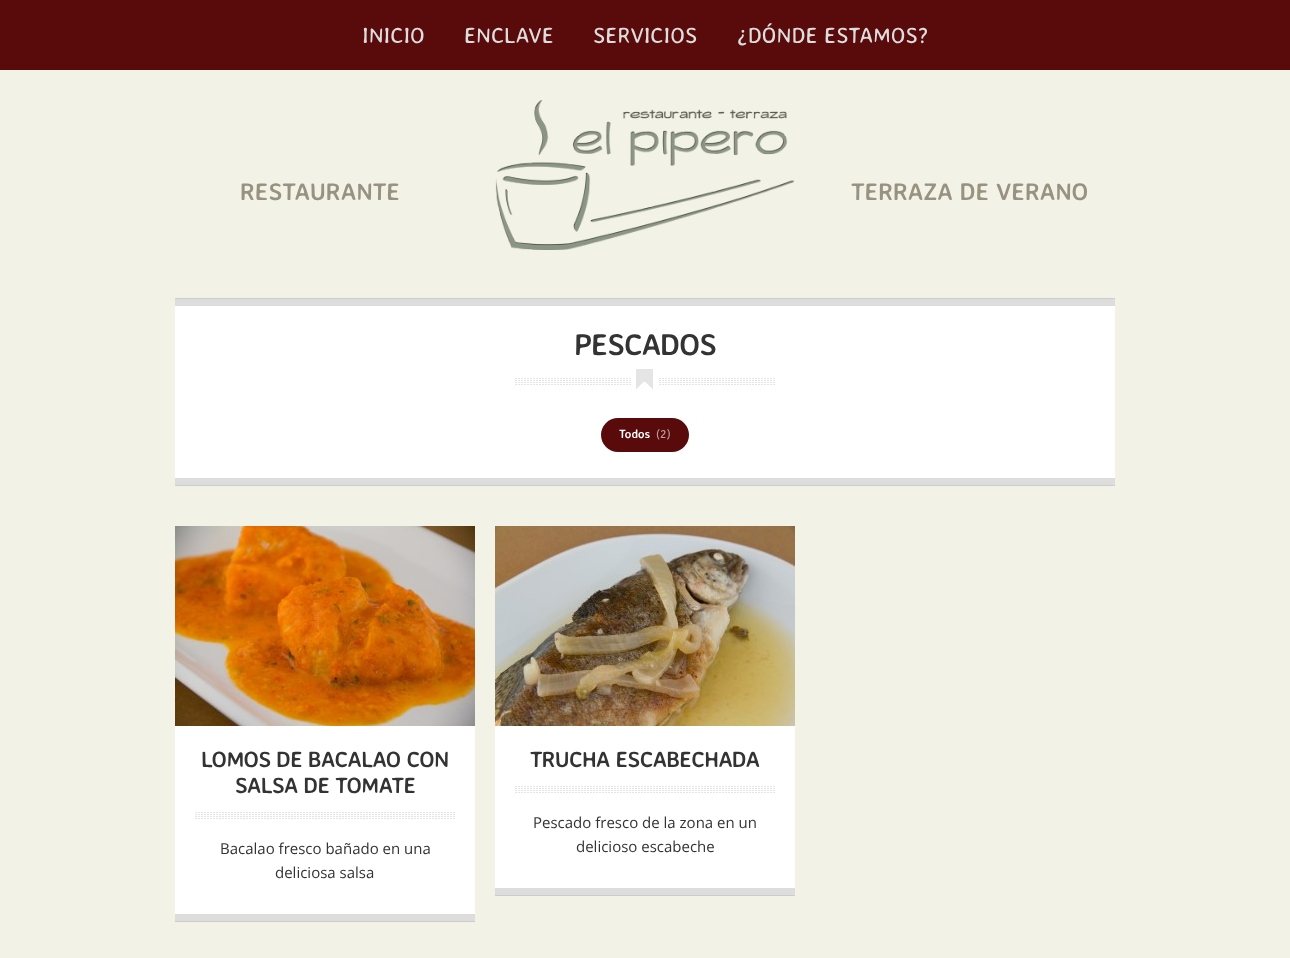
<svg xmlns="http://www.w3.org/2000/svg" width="1290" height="958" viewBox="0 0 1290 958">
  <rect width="100%" height="100%" fill="#f2f2e6"/>
  <rect x="0" y="0" width="1290" height="70" fill="#590a0a"/>
  <text x="362" y="43" font-family="Averia Sans Libre" font-size="22" fill="#dddddd">INICIO</text>
  <text x="464" y="43" font-family="Averia Sans Libre" font-size="22" fill="#dddddd">ENCLAVE</text>
  <text x="593" y="43" font-family="Averia Sans Libre" font-size="22" fill="#dddddd">SERVICIOS</text>
  <text x="737" y="43" font-family="Averia Sans Libre" font-size="22" fill="#dddddd">¿DÓNDE ESTAMOS?</text>
  <image x="495" y="100" width="300" height="150" href="img1.png"/>
  <text x="240" y="200" font-family="Averia Sans Libre" font-size="24" font-weight="bold" fill="#989281">RESTAURANTE</text>
  <text x="851" y="200" font-family="Averia Sans Libre" font-size="24" font-weight="bold" fill="#989281">TERRAZA DE VERANO</text>
  <rect x="175" y="299" width="940" height="186" fill="#dddddd"/>
  <rect x="175" y="298" width="940" height="1" fill="#cccccc"/>
  <rect x="175" y="485" width="940" height="1" fill="#cccccc"/>
  <rect x="175" y="306" width="940" height="172" fill="#ffffff"/>
  <image x="515" y="378" width="260" height="7" href="img2.png"/>
  <text x="574" y="355" font-family="Averia Sans Libre" font-size="30" font-weight="bold" letter-spacing="-0.75" fill="#333333">PESCADOS</text>
  <rect x="632" y="378" width="26" height="7" fill="#ffffff"/>
  <image x="636" y="369" width="17" height="20" href="img3.png"/>
  <rect x="601" y="418" width="88" height="34" rx="17" fill="#590a0a"/>
  <text x="619" y="438" font-family="Averia Sans Libre" font-size="12" font-weight="bold" fill="#ffffff">Todos</text>
  <text x="656" y="438" font-family="Averia Sans Libre" font-size="12" fill="#bd9d9d">(2)</text>
  <rect x="175" y="914" width="300" height="7" fill="#dddddd"/>
  <rect x="175" y="921" width="300" height="1" fill="#cccccc"/>
  <rect x="175" y="726" width="300" height="188" fill="#ffffff"/>
  <image x="175" y="526" width="300" height="200" href="img4.png"/>
  <text x="201" y="767" font-family="Averia Sans Libre" font-size="22" font-weight="bold" letter-spacing="-0.55" fill="#333333">LOMOS DE BACALAO CON</text>
  <text x="235" y="793" font-family="Averia Sans Libre" font-size="22" font-weight="bold" letter-spacing="-0.55" fill="#333333">SALSA DE TOMATE</text>
  <image x="195" y="812" width="260" height="7" href="img2.png"/>
  <text x="220" y="854" font-family="Open Sans" font-size="15" fill="#333333">Bacalao fresco bañado en una</text>
  <text x="275" y="878" font-family="Open Sans" font-size="15" fill="#333333">deliciosa salsa</text>
  <rect x="495" y="888" width="300" height="7" fill="#dddddd"/>
  <rect x="495" y="895" width="300" height="1" fill="#cccccc"/>
  <rect x="495" y="726" width="300" height="162" fill="#ffffff"/>
  <image x="495" y="526" width="300" height="200" href="img5.png"/>
  <text x="530" y="767" font-family="Averia Sans Libre" font-size="22" font-weight="bold" letter-spacing="-0.55" fill="#333333">TRUCHA ESCABECHADA</text>
  <image x="515" y="786" width="260" height="7" href="img2.png"/>
  <text x="533" y="828" font-family="Open Sans" font-size="15" fill="#333333">Pescado fresco de la zona en un</text>
  <text x="576" y="852" font-family="Open Sans" font-size="15" fill="#333333">delicioso escabeche</text>
</svg>
